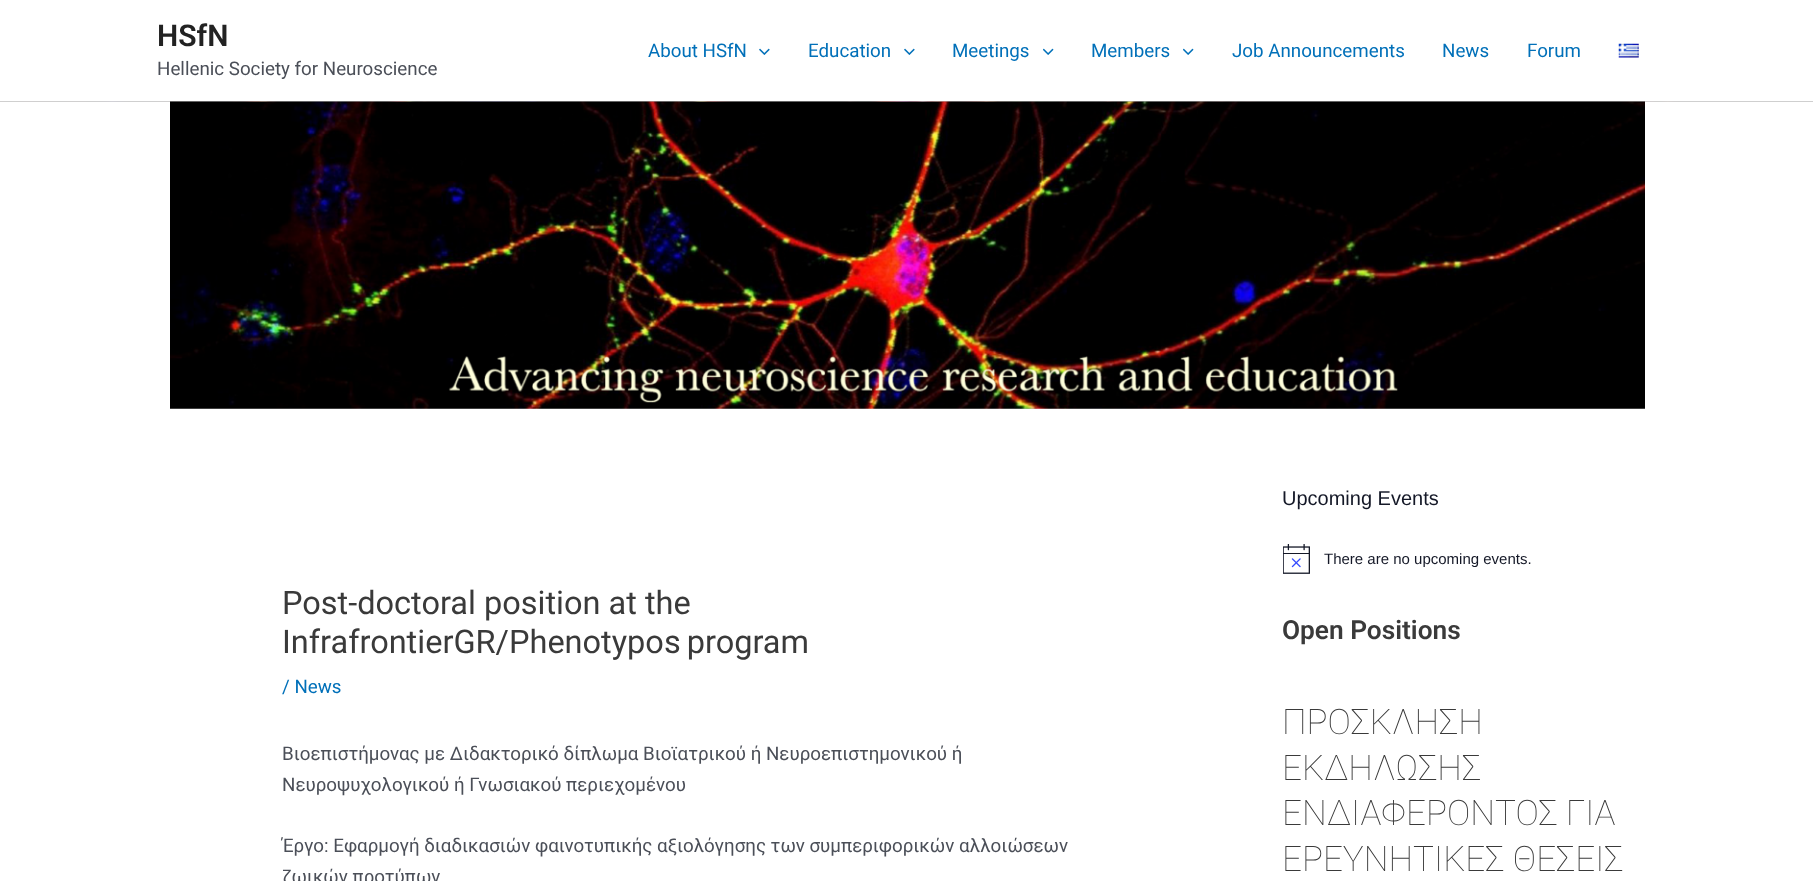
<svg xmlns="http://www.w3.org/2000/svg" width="1813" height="881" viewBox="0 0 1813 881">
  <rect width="100%" height="100%" fill="#ffffff"/>
  <image x="170" y="101" width="1475" height="308" href="img5.png"/>
  <image x="0" y="101" width="1813" height="1" href="img1.png"/>
  <text x="157" y="46" font-family="Roboto" font-size="30" font-weight="600" fill="#222222">HSfN</text>
  <text x="157" y="75" font-family="Roboto" font-size="18.75" fill="#4b4f58">Hellenic Society for Neuroscience</text>
  <text x="648" y="57" font-family="Roboto" font-size="18.75" fill="#0170b9">About HSfN</text>
  <image x="759" y="48" width="11" height="7" href="img2.png"/>
  <text x="808" y="57" font-family="Roboto" font-size="18.75" fill="#0170b9">Education</text>
  <image x="904" y="48" width="11" height="7" href="img2.png"/>
  <text x="952" y="57" font-family="Roboto" font-size="18.75" fill="#0170b9">Meetings</text>
  <image x="1043" y="48" width="11" height="7" href="img3.png"/>
  <text x="1091" y="57" font-family="Roboto" font-size="18.75" fill="#0170b9">Members</text>
  <image x="1183" y="48" width="11" height="7" href="img3.png"/>
  <text x="1232" y="57" font-family="Roboto" font-size="18.75" fill="#0170b9">Job Announcements</text>
  <text x="1442" y="57" font-family="Roboto" font-size="18.75" fill="#0170b9">News</text>
  <text x="1527" y="57" font-family="Roboto" font-size="18.75" fill="#0170b9">Forum</text>
  <image x="1618" y="43" width="21" height="15" href="img4.png"/>
  <text x="282" y="614" font-family="Roboto" font-size="32.5" fill="#3a3a3a">Post-doctoral position at the</text>
  <text x="282" y="653" word-spacing="-2" font-family="Roboto" font-size="32.5" fill="#3a3a3a">ΙnfrafrontierGR/Phenotypos program</text>
  <text x="282" y="693" font-family="Roboto" font-size="18.75" fill="#0170b9">/ News</text>
  <text x="282" y="760" font-family="Roboto" font-size="18.75" fill="#4b4f58">Βιοεπιστήμονας με Διδακτορικό δίπλωμα Βιοϊατρικού ή Νευροεπιστημονικού ή</text>
  <text x="282" y="791" font-family="Roboto" font-size="18.75" fill="#4b4f58">Νευροψυχολογικού ή Γνωσιακού περιεχομένου</text>
  <text x="282" y="852" font-family="Roboto" font-size="18.75" fill="#4b4f58">Έργο: Eφαρμογή διαδικασιών φαινοτυπικής αξιολόγησης των συμπεριφορικών αλλοιώσεων</text>
  <text x="282" y="883" font-family="Roboto" font-size="18.75" fill="#4b4f58">ζωικών προτύπων</text>
  <text x="1282" y="505" font-family="Liberation Sans" font-size="20" fill="#141827">Upcoming Events</text>
  <image x="1283" y="544" width="27" height="30" href="img6.png"/>
  <text x="1324" y="564" font-family="Liberation Sans" font-size="15" fill="#141827">There are no upcoming events.</text>
  <text x="1282" y="639" font-family="Roboto" font-size="26.25" font-weight="600" fill="#3a3a3a">Open Positions</text>
  <text x="1282" y="734" font-family="Roboto" font-size="35" font-weight="100" fill="#3a3a3a">ΠΡΟΣΚΛΗΣΗ</text>
  <text x="1282" y="780" font-family="Roboto" font-size="35" font-weight="100" fill="#3a3a3a">ΕΚΔΗΛΩΣΗΣ</text>
  <text x="1282" y="825" font-family="Roboto" font-size="35" font-weight="100" fill="#3a3a3a">ΕΝΔΙΑΦΕΡΟΝΤΟΣ ΓΙΑ</text>
  <text x="1282" y="871" font-family="Roboto" font-size="35" font-weight="100" fill="#3a3a3a">ΕΡΕΥΝΗΤΙΚΕΣ ΘΕΣΕΙΣ</text>
</svg>
